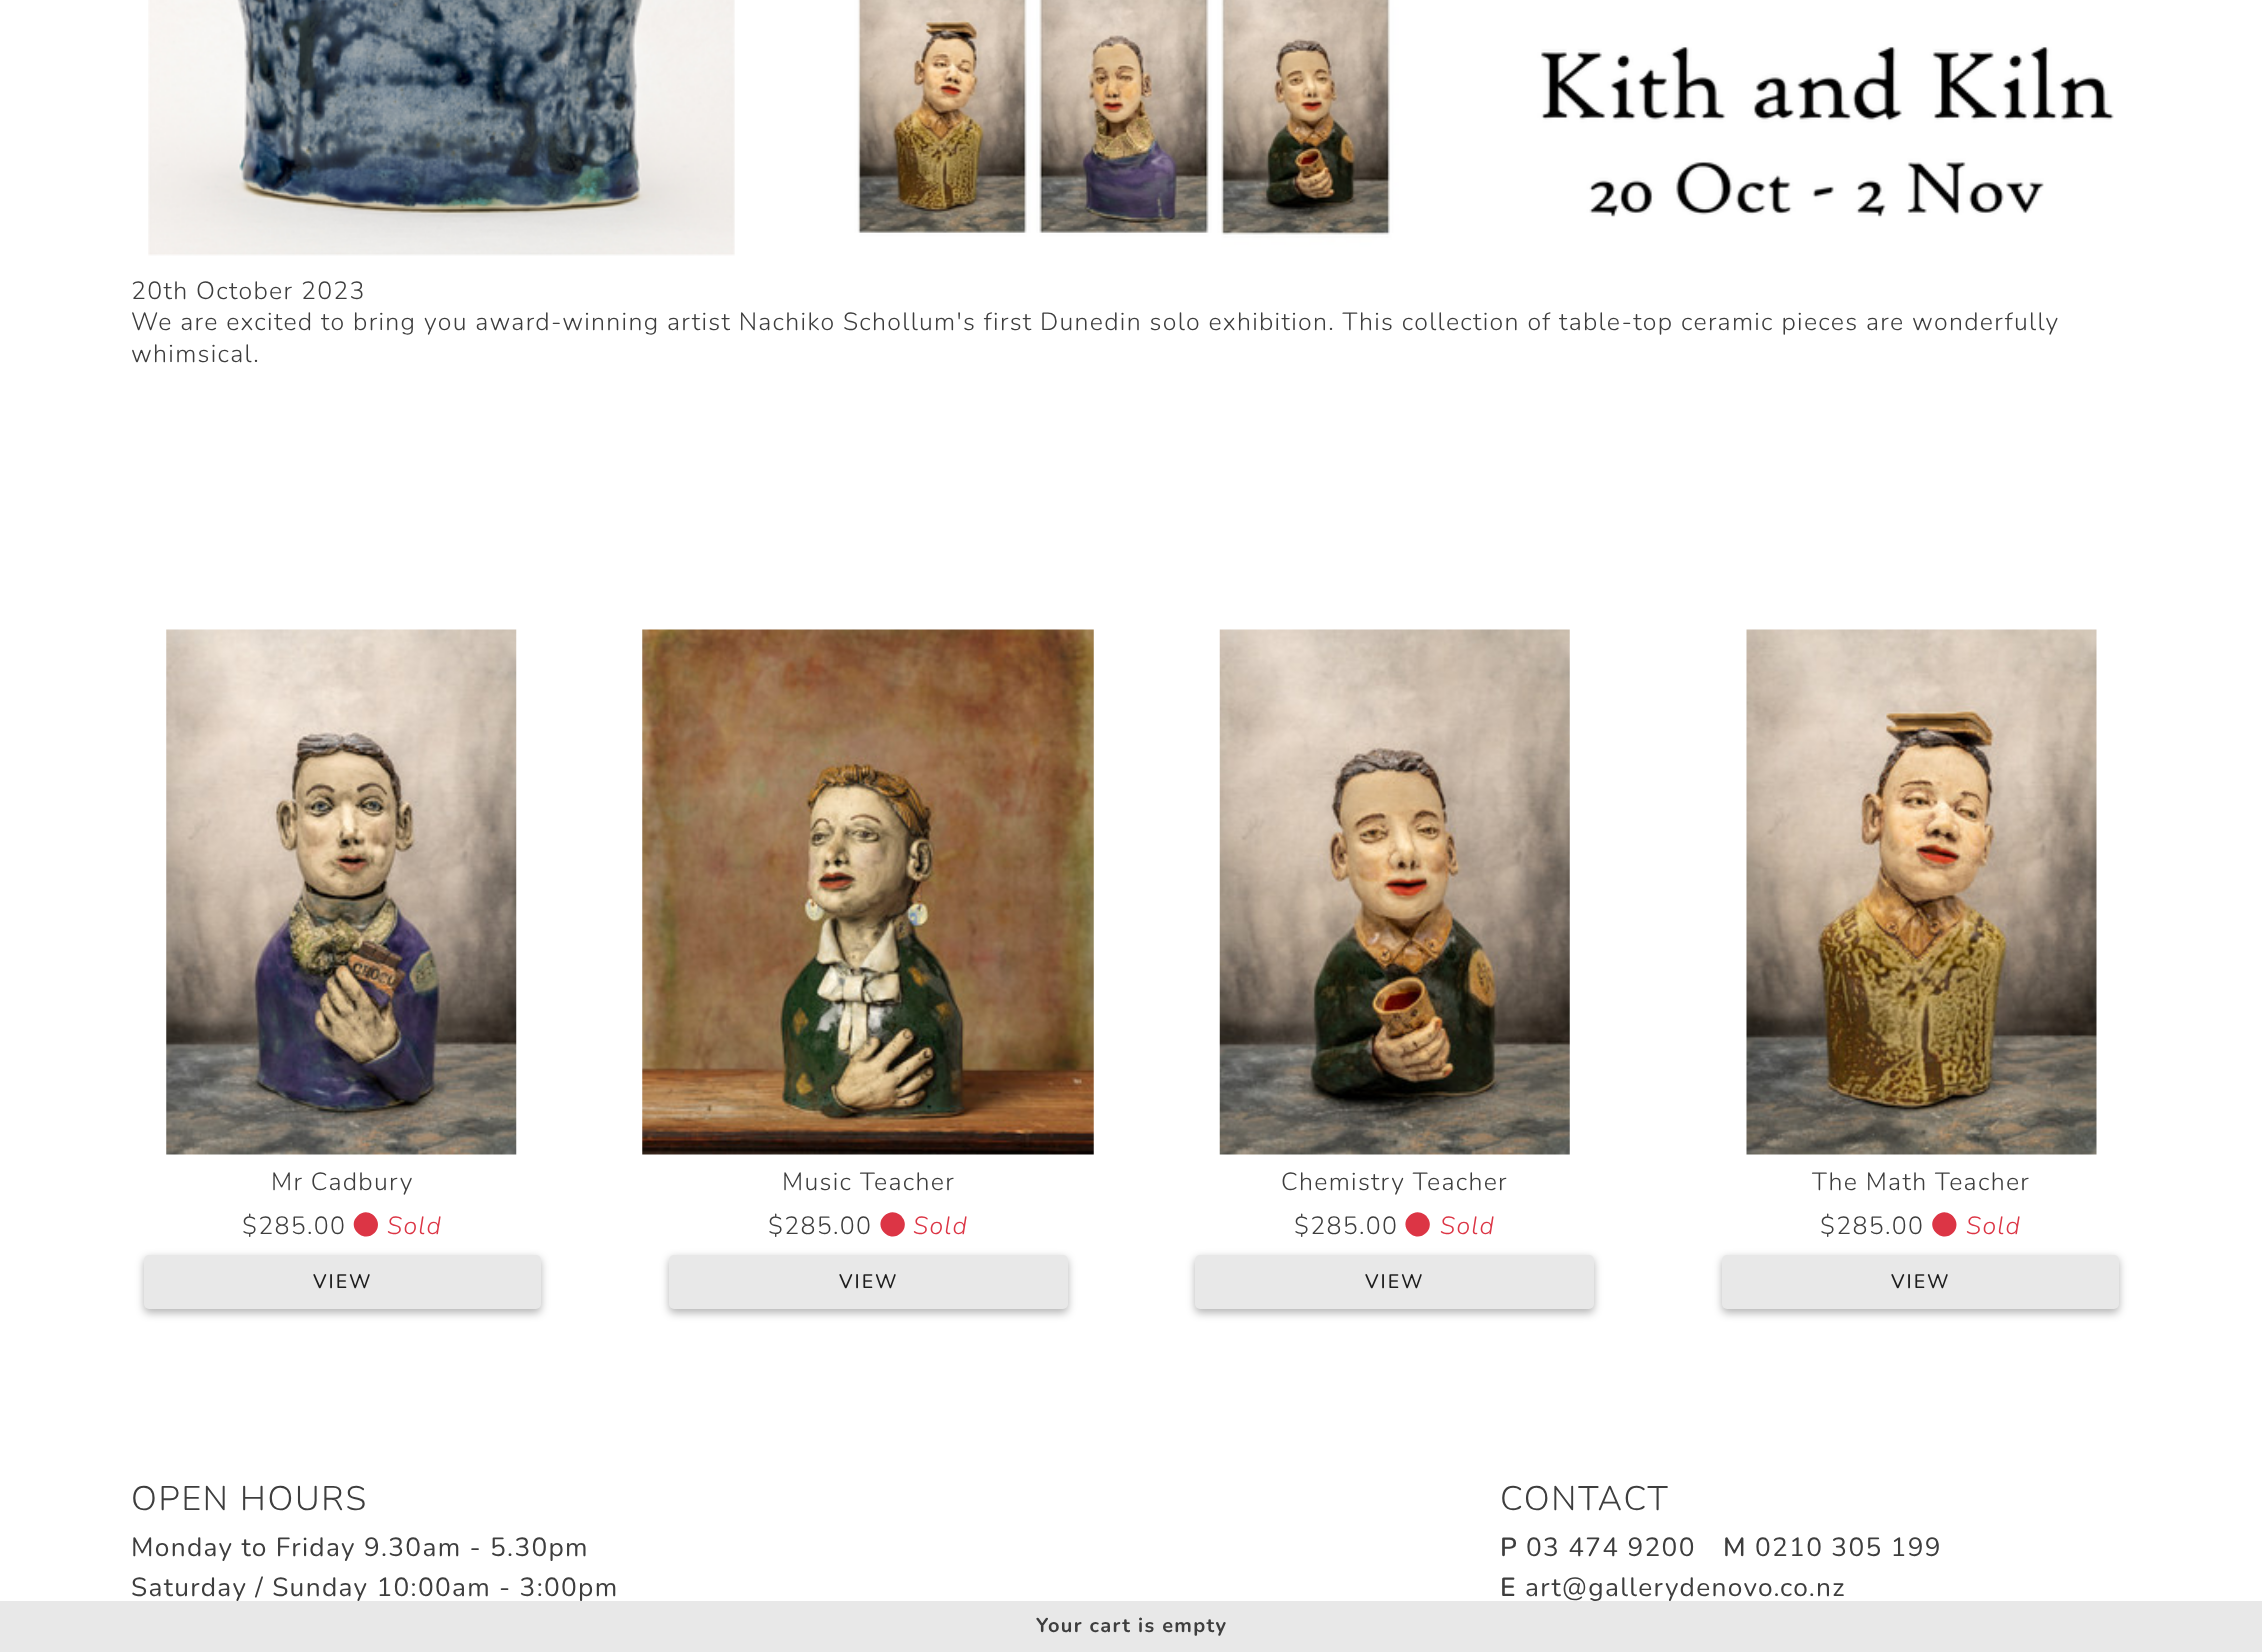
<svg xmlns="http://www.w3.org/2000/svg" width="2262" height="1652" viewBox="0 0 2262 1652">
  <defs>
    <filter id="blur1" x="-50%" y="-200%" width="200%" height="500%"><feGaussianBlur stdDeviation="4"/></filter>
  </defs>
  <rect width="100%" height="100%" fill="#ffffff"/>
  <image x="148" y="0" width="1966" height="256" href="img1.png"/>
  <text x="131" y="299" font-family="Nunito" font-size="24.9" font-weight="300" letter-spacing="1.31" fill="#3e3e3e">20th October 2023</text>
  <text x="131" y="330" font-family="Nunito" font-size="24.9" font-weight="300" letter-spacing="1.31" fill="#3e3e3e">We are excited to bring you award-winning artist Nachiko Schollum's first Dunedin solo exhibition. This collection of table-top ceramic pieces are wonderfully</text>
  <text x="131" y="362" font-family="Nunito" font-size="24.9" font-weight="300" letter-spacing="1.31" fill="#3e3e3e">whimsical.</text>
  <image x="166" y="629" width="351" height="526" href="img2.png"/>
  <text x="271" y="1190" font-family="Nunito" font-size="24.9" font-weight="300" letter-spacing="1.31" fill="#3e3e3e">Mr Cadbury</text>
  <text x="242" y="1234" font-family="Nunito" font-size="24.9" font-weight="300" letter-spacing="1.31" fill="#3e3e3e">$285.00</text>
  <path d="M357.5 1216C368.5 1204.5 385.5 1221.5 374.5 1233C363.5 1244 346 1227 357.5 1216Z" fill="#dc3545"/>
  <text x="387" y="1234" font-family="Nunito" font-size="24.9" font-weight="300" font-style="italic" letter-spacing="1.31" fill="#dc3545">Sold</text>
  <rect x="144" y="1258" width="397" height="55" rx="5" fill="#000000" fill-opacity="0.29" filter="url(#blur1)"/>
  <rect x="144" y="1255" width="397" height="54" rx="5" fill="#e8e8e8"/>
  <text x="313" y="1288" font-family="Nunito" font-size="19.5" font-weight="500" letter-spacing="2" fill="#1e1e1e">VIEW</text>
  <image x="642" y="629" width="452" height="526" href="img3.png"/>
  <text x="782" y="1190" font-family="Nunito" font-size="24.9" font-weight="300" letter-spacing="1.31" fill="#3e3e3e">Music Teacher</text>
  <text x="768" y="1234" font-family="Nunito" font-size="24.9" font-weight="300" letter-spacing="1.31" fill="#3e3e3e">$285.00</text>
  <path d="M884 1216C895.5 1204.5 912.5 1221.5 901 1233C890 1244 873 1227 884 1216Z" fill="#dc3545"/>
  <text x="913" y="1234" font-family="Nunito" font-size="24.9" font-weight="300" font-style="italic" letter-spacing="1.31" fill="#dc3545">Sold</text>
  <rect x="669" y="1258" width="399" height="55" rx="5" fill="#000000" fill-opacity="0.29" filter="url(#blur1)"/>
  <rect x="669" y="1255" width="399" height="54" rx="5" fill="#e8e8e8"/>
  <text x="839" y="1288" font-family="Nunito" font-size="19.5" font-weight="500" letter-spacing="2" fill="#1e1e1e">VIEW</text>
  <image x="1219" y="629" width="351" height="526" href="img4.png"/>
  <text x="1281" y="1190" font-family="Nunito" font-size="24.9" font-weight="300" letter-spacing="1.31" fill="#3e3e3e">Chemistry Teacher</text>
  <text x="1294" y="1234" font-family="Nunito" font-size="24.9" font-weight="300" letter-spacing="1.31" fill="#3e3e3e">$285.00</text>
  <path d="M1409 1216C1420.5 1204.5 1437.5 1221.5 1426 1233C1415 1244 1398 1227 1409 1216Z" fill="#dc3545"/>
  <text x="1440" y="1234" font-family="Nunito" font-size="24.9" font-weight="300" font-style="italic" letter-spacing="1.31" fill="#dc3545">Sold</text>
  <rect x="1195" y="1258" width="399" height="55" rx="5" fill="#000000" fill-opacity="0.29" filter="url(#blur1)"/>
  <rect x="1195" y="1255" width="399" height="54" rx="5" fill="#e8e8e8"/>
  <text x="1365" y="1288" font-family="Nunito" font-size="19.5" font-weight="500" letter-spacing="2" fill="#1e1e1e">VIEW</text>
  <image x="1746" y="629" width="351" height="526" href="img5.png"/>
  <text x="1812" y="1190" font-family="Nunito" font-size="24.9" font-weight="300" letter-spacing="1.31" fill="#3e3e3e">The Math Teacher</text>
  <text x="1820" y="1234" font-family="Nunito" font-size="24.9" font-weight="300" letter-spacing="1.31" fill="#3e3e3e">$285.00</text>
  <path d="M1936 1216C1947 1204.5 1964 1221.5 1953 1233C1942 1244 1924.5 1227 1936 1216Z" fill="#dc3545"/>
  <text x="1966" y="1234" font-family="Nunito" font-size="24.9" font-weight="300" font-style="italic" letter-spacing="1.31" fill="#dc3545">Sold</text>
  <rect x="1722" y="1258" width="397" height="55" rx="5" fill="#000000" fill-opacity="0.29" filter="url(#blur1)"/>
  <rect x="1722" y="1255" width="397" height="54" rx="5" fill="#e8e8e8"/>
  <text x="1891" y="1288" font-family="Nunito" font-size="19.5" font-weight="500" letter-spacing="2" fill="#1e1e1e">VIEW</text>
  <text x="131" y="1510" font-family="Nunito" font-size="34" font-weight="300" letter-spacing="1.75" fill="#3e3e3e">OPEN HOURS</text>
  <text x="131" y="1556" font-family="Nunito" font-size="26.25" letter-spacing="1.31" fill="#3e3e3e">Monday to Friday 9.30am - 5.30pm</text>
  <text x="131" y="1596" font-family="Nunito" font-size="26.25" letter-spacing="1.31" fill="#3e3e3e">Saturday / Sunday 10:00am - 3:00pm</text>
  <text x="1500" y="1510" font-family="Nunito" font-size="34" font-weight="300" letter-spacing="1.75" fill="#3e3e3e">CONTACT</text>
  <text x="1500" y="1556" font-family="Nunito" font-size="26.25" font-weight="600" letter-spacing="1.31" fill="#3e3e3e">P</text>
  <text x="1526" y="1556" font-family="Nunito" font-size="26.25" letter-spacing="1.31" fill="#3e3e3e">03 474 9200</text>
  <text x="1723" y="1556" font-family="Nunito" font-size="26.25" font-weight="600" letter-spacing="1.31" fill="#3e3e3e">M</text>
  <text x="1755" y="1556" font-family="Nunito" font-size="26.25" letter-spacing="1.31" fill="#3e3e3e">0210 305 199</text>
  <text x="1500" y="1596" font-family="Nunito" font-size="26.25" font-weight="600" letter-spacing="1.31" fill="#3e3e3e">E</text>
  <text x="1525" y="1596" font-family="Nunito" font-size="26.25" letter-spacing="1.31" fill="#3e3e3e">art@gallerydenovo.co.nz</text>
  <rect x="0" y="1601" width="2262" height="51" fill="#e8e8e8"/>
  <text x="1036" y="1632" font-family="Nunito" font-size="20" font-weight="bold" letter-spacing="1.31" fill="#3e3e3e">Your cart is empty</text>
</svg>
